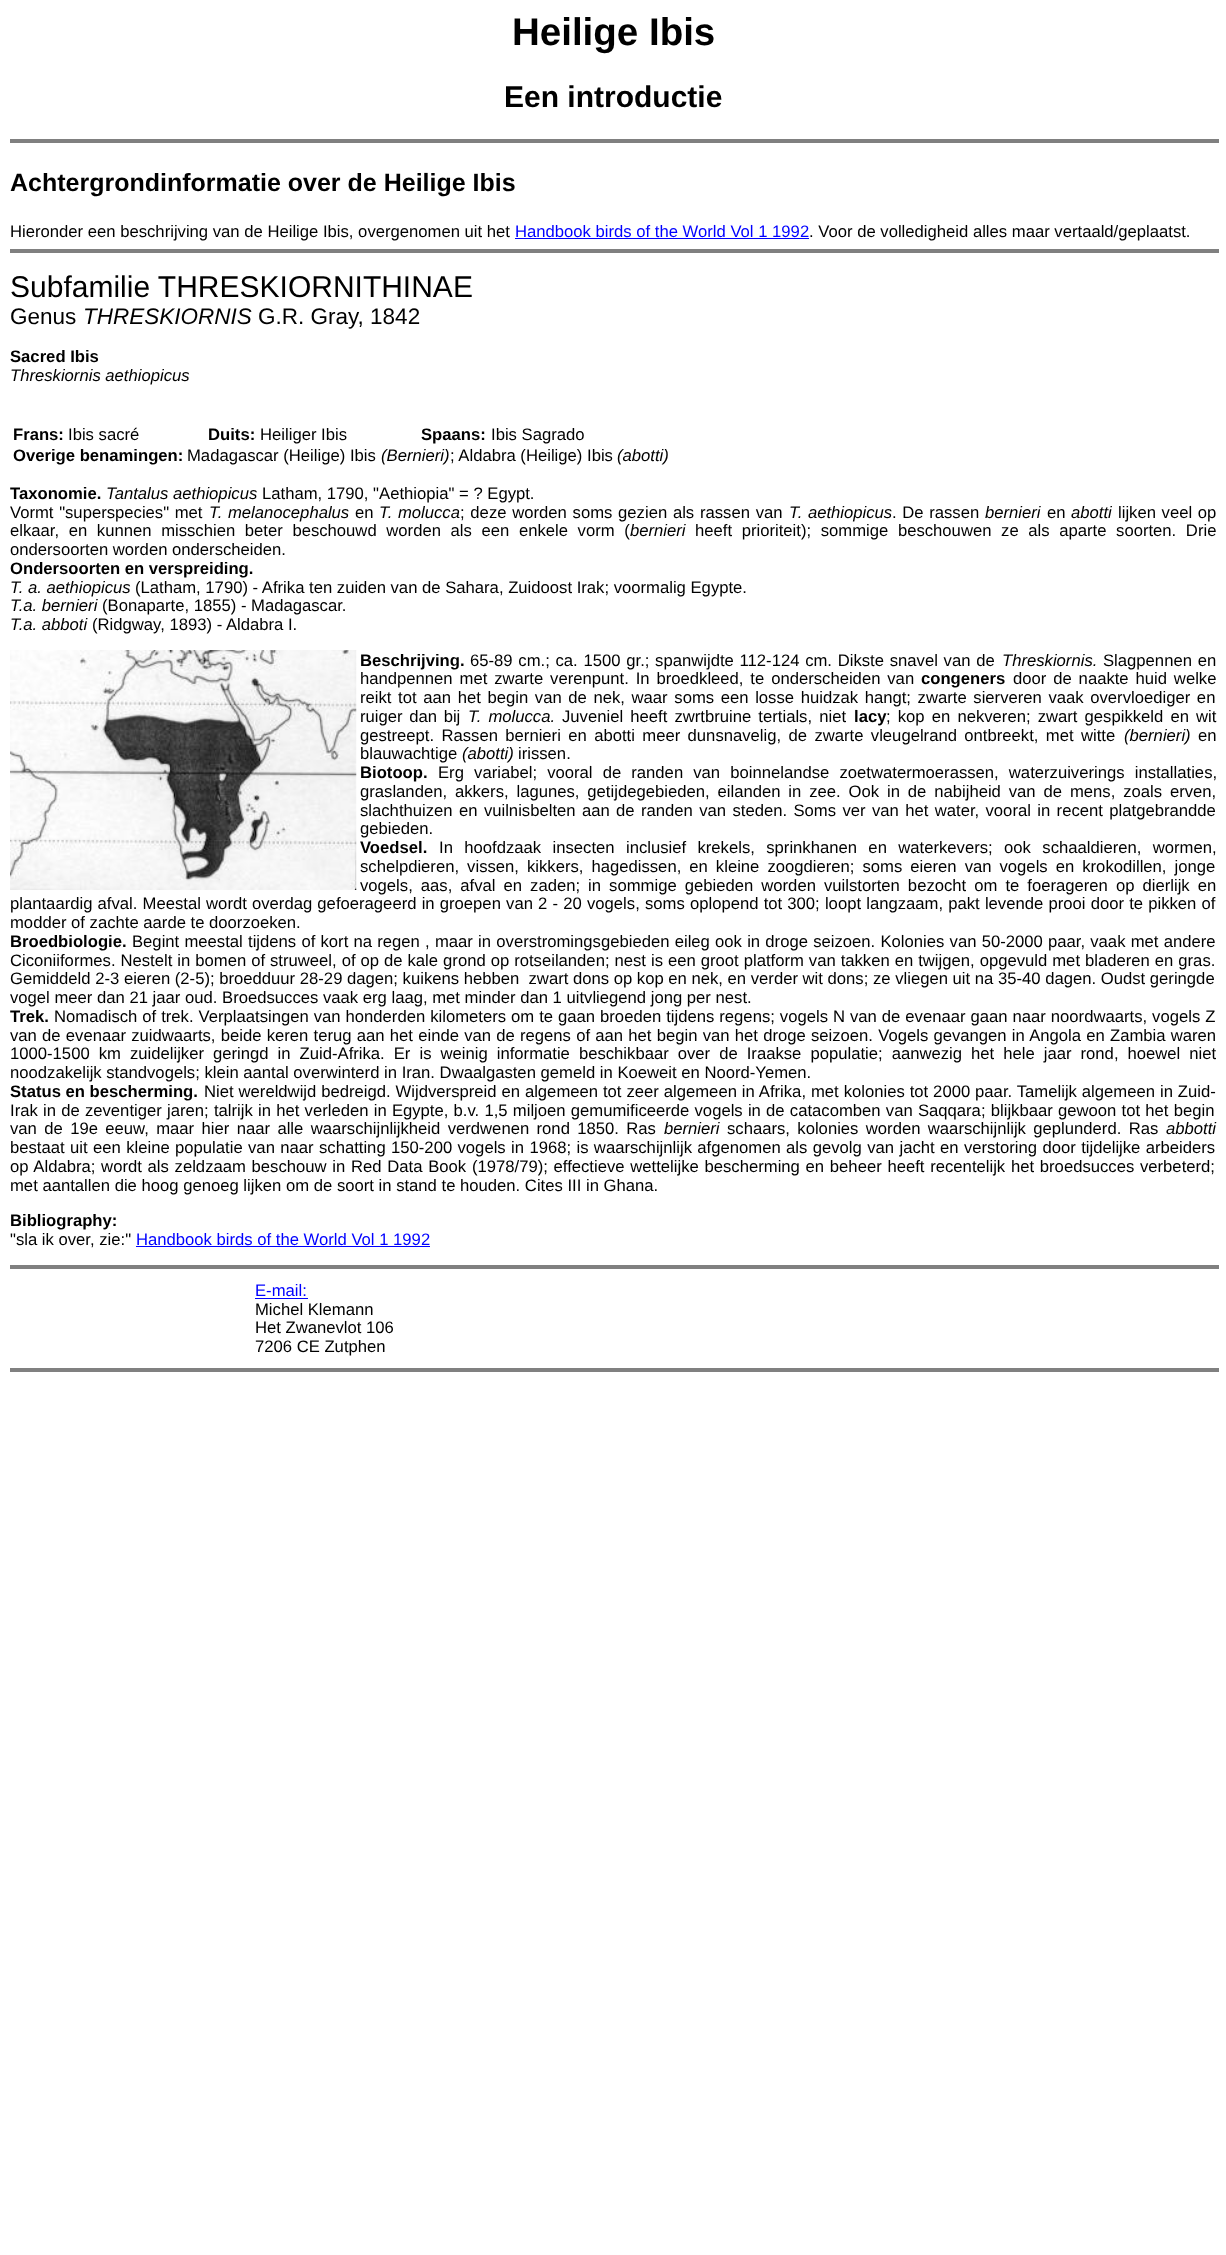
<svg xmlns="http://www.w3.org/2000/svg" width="1226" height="2255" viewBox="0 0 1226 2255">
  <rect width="100%" height="100%" fill="#ffffff"/>
  <text x="512" y="45" font-family="Liberation Sans" font-size="38.5" font-weight="bold" fill="#000000">Heilige Ibis</text>
  <text x="504" y="107" font-family="Liberation Sans" font-size="30" font-weight="bold" fill="#000000">Een introductie</text>
  <rect x="10" y="139" width="1209" height="4" fill="#808080"/>
  <text x="10" y="191" font-family="Liberation Sans" font-size="25" font-weight="bold" fill="#000000">Achtergrondinformatie over de Heilige Ibis</text>
  <text x="10" y="237" font-family="Liberation Sans" font-size="16.67" fill="#000000">Hieronder een beschrijving van de Heilige Ibis, overgenomen uit het</text>
  <text x="515" y="237" font-family="Liberation Sans" font-size="16.67" fill="#0000ff">Handbook birds of the World Vol 1 1992</text>
  <text x="809" y="237" font-family="Liberation Sans" font-size="16.67" fill="#000000">. Voor de volledigheid alles maar vertaald/geplaatst.</text>
  <rect x="515" y="238" width="294" height="1" fill="#0000ff"/>
  <rect x="10" y="249" width="1209" height="4" fill="#808080"/>
  <text x="10" y="297" font-family="Liberation Sans" font-size="30" fill="#000000">Subfamilie THRESKIORNITHINAE</text>
  <text x="10" y="324" font-family="Liberation Sans" font-size="22.5" fill="#000000">Genus</text>
  <text x="83" y="324" font-family="Liberation Sans" font-size="22.5" font-style="italic" fill="#000000">THRESKIORNIS</text>
  <text x="258" y="324" font-family="Liberation Sans" font-size="22.5" fill="#000000">G.R. Gray, 1842</text>
  <text x="10" y="362" font-family="Liberation Sans" font-size="16.67" font-weight="bold" fill="#000000">Sacred Ibis</text>
  <text x="10" y="381" font-family="Liberation Sans" font-size="16.67" font-style="italic" fill="#000000">Threskiornis aethiopicus</text>
  <text x="13" y="440" font-family="Liberation Sans" font-size="16.67" font-weight="bold" fill="#000000">Frans:</text>
  <text x="68" y="440" font-family="Liberation Sans" font-size="16.67" fill="#000000">Ibis sacré</text>
  <text x="208" y="440" font-family="Liberation Sans" font-size="16.67" font-weight="bold" fill="#000000">Duits:</text>
  <text x="260" y="440" font-family="Liberation Sans" font-size="16.67" fill="#000000">Heiliger Ibis</text>
  <text x="421" y="440" font-family="Liberation Sans" font-size="16.67" font-weight="bold" fill="#000000">Spaans:</text>
  <text x="491" y="440" font-family="Liberation Sans" font-size="16.67" fill="#000000">Ibis Sagrado</text>
  <text x="13" y="461" font-family="Liberation Sans" font-size="16.67" font-weight="bold" fill="#000000">Overige benamingen:</text>
  <text x="187" y="461" font-family="Liberation Sans" font-size="16.67" fill="#000000">Madagascar (Heilige) Ibis</text>
  <text x="381" y="461" font-family="Liberation Sans" font-size="16.67" font-style="italic" fill="#000000">(Bernieri)</text>
  <text x="450" y="461" font-family="Liberation Sans" font-size="16.67" fill="#000000">; Aldabra (Heilige) Ibis</text>
  <text x="617" y="461" font-family="Liberation Sans" font-size="16.67" font-style="italic" fill="#000000">(abotti)</text>
  <text x="10" y="499" font-family="Liberation Sans" font-size="16.67" font-weight="bold" fill="#000000">Taxonomie.</text>
  <text x="106" y="499" font-family="Liberation Sans" font-size="16.67" font-style="italic" fill="#000000">Tantalus aethiopicus</text>
  <text x="262" y="499" font-family="Liberation Sans" font-size="16.67" fill="#000000">Latham, 1790, "Aethiopia" = ? Egypt.</text>
  <text x="10" y="518" word-spacing="1" font-family="Liberation Sans" font-size="16.67" fill="#000000">Vormt "superspecies" met</text>
  <text x="209" y="518" word-spacing="1" font-family="Liberation Sans" font-size="16.67" font-style="italic" fill="#000000">T. melanocephalus</text>
  <text x="355" y="518" font-family="Liberation Sans" font-size="16.67" fill="#000000">en</text>
  <text x="379" y="518" word-spacing="1" font-family="Liberation Sans" font-size="16.67" font-style="italic" fill="#000000">T. molucca</text>
  <text x="460" y="518" word-spacing="1.1" font-family="Liberation Sans" font-size="16.67" fill="#000000">; deze worden soms gezien als rassen van</text>
  <text x="789" y="518" word-spacing="1" font-family="Liberation Sans" font-size="16.67" font-style="italic" fill="#000000">T. aethiopicus</text>
  <text x="892" y="518" word-spacing="1" font-family="Liberation Sans" font-size="16.67" fill="#000000">. De rassen</text>
  <text x="985" y="518" font-family="Liberation Sans" font-size="16.67" font-style="italic" fill="#000000">bernieri</text>
  <text x="1047" y="518" font-family="Liberation Sans" font-size="16.67" fill="#000000">en</text>
  <text x="1071" y="518" font-family="Liberation Sans" font-size="16.67" font-style="italic" fill="#000000">abotti</text>
  <text x="1118" y="518" word-spacing="1" font-family="Liberation Sans" font-size="16.67" fill="#000000">lijken veel op</text>
  <text x="10" y="536" word-spacing="5" font-family="Liberation Sans" font-size="16.67" fill="#000000">elkaar, en kunnen misschien beter beschouwd worden als een enkele vorm (</text>
  <text x="630" y="536" font-family="Liberation Sans" font-size="16.67" font-style="italic" fill="#000000">bernieri</text>
  <text x="695" y="536" word-spacing="5" font-family="Liberation Sans" font-size="16.67" fill="#000000">heeft prioriteit); sommige beschouwen ze als aparte soorten. Drie</text>
  <text x="10" y="555" font-family="Liberation Sans" font-size="16.67" fill="#000000">ondersoorten worden onderscheiden.</text>
  <text x="10" y="574" font-family="Liberation Sans" font-size="16.67" font-weight="bold" fill="#000000">Ondersoorten en verspreiding.</text>
  <text x="10" y="593" font-family="Liberation Sans" font-size="16.67" font-style="italic" fill="#000000">T. a. aethiopicus</text>
  <text x="135" y="593" font-family="Liberation Sans" font-size="16.67" fill="#000000">(Latham, 1790) - Afrika ten zuiden van de Sahara, Zuidoost Irak; voormalig Egypte.</text>
  <text x="10" y="611" font-family="Liberation Sans" font-size="16.67" font-style="italic" fill="#000000">T.a. bernieri</text>
  <text x="102" y="611" font-family="Liberation Sans" font-size="16.67" fill="#000000">(Bonaparte, 1855) - Madagascar.</text>
  <text x="10" y="630" font-family="Liberation Sans" font-size="16.67" font-style="italic" fill="#000000">T.a. abboti</text>
  <text x="92" y="630" font-family="Liberation Sans" font-size="16.67" fill="#000000">(Ridgway, 1893) - Aldabra I.</text>
  <image x="10" y="650" width="347" height="240" href="img1.png"/>
  <text x="360" y="666" font-family="Liberation Sans" font-size="16.67" font-weight="bold" fill="#000000">Beschrijving.</text>
  <text x="470" y="666" word-spacing="1.1" font-family="Liberation Sans" font-size="16.67" fill="#000000">65-89 cm.; ca. 1500 gr.; spanwijdte 112-124 cm. Dikste snavel van de</text>
  <text x="1002" y="666" font-family="Liberation Sans" font-size="16.67" font-style="italic" fill="#000000">Threskiornis.</text>
  <text x="1103" y="666" word-spacing="1.1" font-family="Liberation Sans" font-size="16.67" fill="#000000">Slagpennen en</text>
  <text x="360" y="684" word-spacing="2.25" font-family="Liberation Sans" font-size="16.67" fill="#000000">handpennen met zwarte verenpunt. In broedkleed, te onderscheiden van</text>
  <text x="921" y="684" font-family="Liberation Sans" font-size="16.67" font-weight="bold" fill="#000000">congeners</text>
  <text x="1013" y="684" word-spacing="2.25" font-family="Liberation Sans" font-size="16.67" fill="#000000">door de naakte huid welke</text>
  <text x="360" y="703" word-spacing="2" font-family="Liberation Sans" font-size="16.67" fill="#000000">reikt tot aan het begin van de nek, waar soms een losse huidzak hangt; zwarte sierveren vaak overvloediger en</text>
  <text x="360" y="722" word-spacing="2" font-family="Liberation Sans" font-size="16.67" fill="#000000">ruiger dan bij</text>
  <text x="468" y="722" word-spacing="2.5" font-family="Liberation Sans" font-size="16.67" font-style="italic" fill="#000000">T. molucca.</text>
  <text x="562" y="722" word-spacing="2.5" font-family="Liberation Sans" font-size="16.67" fill="#000000">Juveniel heeft zwrtbruine tertials, niet</text>
  <text x="854" y="722" font-family="Liberation Sans" font-size="16.67" font-weight="bold" fill="#000000">lacy</text>
  <text x="886" y="722" word-spacing="2.5" font-family="Liberation Sans" font-size="16.67" fill="#000000">; kop en nekveren; zwart gespikkeld en wit</text>
  <text x="360" y="741" word-spacing="2.75" font-family="Liberation Sans" font-size="16.67" fill="#000000">gestreept. Rassen bernieri en abotti meer dunsnavelig, de zwarte vleugelrand ontbreekt, met witte</text>
  <text x="1124" y="741" font-family="Liberation Sans" font-size="16.67" font-style="italic" fill="#000000">(bernieri)</text>
  <text x="1198" y="741" font-family="Liberation Sans" font-size="16.67" fill="#000000">en</text>
  <text x="360" y="759" font-family="Liberation Sans" font-size="16.67" fill="#000000">blauwachtige</text>
  <text x="462" y="759" font-family="Liberation Sans" font-size="16.67" font-style="italic" fill="#000000">(abotti)</text>
  <text x="518" y="759" font-family="Liberation Sans" font-size="16.67" fill="#000000">irissen.</text>
  <text x="360" y="778" font-family="Liberation Sans" font-size="16.67" font-weight="bold" fill="#000000">Biotoop.</text>
  <text x="438" y="778" word-spacing="5.5" font-family="Liberation Sans" font-size="16.67" fill="#000000">Erg variabel; vooral de randen van boinnelandse zoetwatermoerassen, waterzuiverings installaties,</text>
  <text x="360" y="797" word-spacing="3.25" font-family="Liberation Sans" font-size="16.67" fill="#000000">graslanden, akkers, lagunes, getijdegebieden, eilanden in zee. Ook in de nabijheid van de mens, zoals erven,</text>
  <text x="360" y="816" word-spacing="1.75" font-family="Liberation Sans" font-size="16.67" fill="#000000">slachthuizen en vuilnisbelten aan de randen van steden. Soms ver van het water, vooral in recent platgebrandde</text>
  <text x="360" y="834" font-family="Liberation Sans" font-size="16.67" fill="#000000">gebieden.</text>
  <text x="360" y="853" font-family="Liberation Sans" font-size="16.67" font-weight="bold" fill="#000000">Voedsel.</text>
  <text x="439" y="853" word-spacing="6.75" font-family="Liberation Sans" font-size="16.67" fill="#000000">In hoofdzaak insecten inclusief krekels, sprinkhanen en waterkevers; ook schaaldieren, wormen,</text>
  <text x="360" y="872" word-spacing="3.4" font-family="Liberation Sans" font-size="16.67" fill="#000000">schelpdieren, vissen, kikkers, hagedissen, en kleine zoogdieren; soms eieren van vogels en krokodillen, jonge</text>
  <text x="360" y="891" word-spacing="3.4" font-family="Liberation Sans" font-size="16.67" fill="#000000">vogels, aas, afval en zaden; in sommige gebieden worden vuilstorten bezocht om te foerageren op dierlijk en</text>
  <text x="10" y="909" word-spacing="0.55" font-family="Liberation Sans" font-size="16.67" fill="#000000">plantaardig afval. Meestal wordt overdag gefoerageerd in groepen van 2 - 20 vogels, soms oplopend tot 300; loopt langzaam, pakt levende prooi door te pikken of</text>
  <text x="10" y="928" font-family="Liberation Sans" font-size="16.67" fill="#000000">modder of zachte aarde te doorzoeken.</text>
  <text x="10" y="947" font-family="Liberation Sans" font-size="16.67" font-weight="bold" fill="#000000">Broedbiologie.</text>
  <text x="132" y="947" word-spacing="0.6" font-family="Liberation Sans" font-size="16.67" fill="#000000">Begint meestal tijdens of kort na regen , maar in overstromingsgebieden eileg ook in droge seizoen. Kolonies van 50-2000 paar, vaak met andere</text>
  <text x="10" y="966" word-spacing="0.35" font-family="Liberation Sans" font-size="16.67" fill="#000000">Ciconiiformes. Nestelt in bomen of struweel, of op de kale grond op rotseilanden; nest is een groot platform van takken en twijgen, opgevuld met bladeren en gras.</text>
  <text x="10" y="984" font-family="Liberation Sans" font-size="16.67" fill="#000000" xml:space="preserve">Gemiddeld 2-3 eieren (2-5); broedduur 28-29 dagen; kuikens hebben  zwart dons op kop en nek, en verder wit dons; ze vliegen uit na 35-40 dagen. Oudst geringde</text>
  <text x="10" y="1003" font-family="Liberation Sans" font-size="16.67" fill="#000000">vogel meer dan 21 jaar oud. Broedsucces vaak erg laag, met minder dan 1 uitvliegend jong per nest.</text>
  <text x="10" y="1022" font-family="Liberation Sans" font-size="16.67" font-weight="bold" fill="#000000">Trek.</text>
  <text x="54" y="1022" word-spacing="0.35" font-family="Liberation Sans" font-size="16.67" fill="#000000">Nomadisch of trek. Verplaatsingen van honderden kilometers om te gaan broeden tijdens regens; vogels N van de evenaar gaan naar noordwaarts, vogels Z</text>
  <text x="10" y="1041" word-spacing="0.6" font-family="Liberation Sans" font-size="16.67" fill="#000000">van de evenaar zuidwaarts, beide keren terug aan het einde van de regens of aan het begin van het droge seizoen. Vogels gevangen in Angola en Zambia waren</text>
  <text x="10" y="1059" word-spacing="4.4" font-family="Liberation Sans" font-size="16.67" fill="#000000">1000-1500 km zuidelijker geringd in Zuid-Afrika. Er is weinig informatie beschikbaar over de Iraakse populatie; aanwezig het hele jaar rond, hoewel niet</text>
  <text x="10" y="1078" font-family="Liberation Sans" font-size="16.67" fill="#000000">noodzakelijk standvogels; klein aantal overwinterd in Iran. Dwaalgasten gemeld in Koeweit en Noord-Yemen.</text>
  <text x="10" y="1097" font-family="Liberation Sans" font-size="16.67" font-weight="bold" fill="#000000">Status en bescherming.</text>
  <text x="204" y="1097" word-spacing="0.3" font-family="Liberation Sans" font-size="16.67" fill="#000000">Niet wereldwijd bedreigd. Wijdverspreid en algemeen tot zeer algemeen in Afrika, met kolonies tot 2000 paar. Tamelijk algemeen in Zuid-</text>
  <text x="10" y="1116" word-spacing="0.6" font-family="Liberation Sans" font-size="16.67" fill="#000000">Irak in de zeventiger jaren; talrijk in het verleden in Egypte, b.v. 1,5 miljoen gemumificeerde vogels in de catacomben van Saqqara; blijkbaar gewoon tot het begin</text>
  <text x="10" y="1134" word-spacing="2.75" font-family="Liberation Sans" font-size="16.67" fill="#000000">van de 19e eeuw, maar hier naar alle waarschijnlijkheid verdwenen rond 1850. Ras</text>
  <text x="664" y="1134" font-family="Liberation Sans" font-size="16.67" font-style="italic" fill="#000000">bernieri</text>
  <text x="727" y="1134" word-spacing="2.75" font-family="Liberation Sans" font-size="16.67" fill="#000000">schaars, kolonies worden waarschijnlijk geplunderd. Ras</text>
  <text x="1166" y="1134" font-family="Liberation Sans" font-size="16.67" font-style="italic" fill="#000000">abbotti</text>
  <text x="10" y="1153" word-spacing="0.75" font-family="Liberation Sans" font-size="16.67" fill="#000000">bestaat uit een kleine populatie van naar schatting 150-200 vogels in 1968; is waarschijnlijk afgenomen als gevolg van jacht en verstoring door tijdelijke arbeiders</text>
  <text x="10" y="1172" word-spacing="1.1" font-family="Liberation Sans" font-size="16.67" fill="#000000">op Aldabra; wordt als zeldzaam beschouw in Red Data Book (1978/79); effectieve wettelijke bescherming en beheer heeft recentelijk het broedsucces verbeterd;</text>
  <text x="10" y="1191" font-family="Liberation Sans" font-size="16.67" fill="#000000">met aantallen die hoog genoeg lijken om de soort in stand te houden. Cites III in Ghana.</text>
  <text x="10" y="1226" font-family="Liberation Sans" font-size="16.67" font-weight="bold" fill="#000000">Bibliography:</text>
  <text x="10" y="1245" font-family="Liberation Sans" font-size="16.67" fill="#000000">"sla ik over, zie:"</text>
  <text x="136" y="1245" font-family="Liberation Sans" font-size="16.67" fill="#0000ff">Handbook birds of the World Vol 1 1992</text>
  <rect x="136" y="1246" width="294" height="1" fill="#0000ff"/>
  <rect x="10" y="1265" width="1209" height="4" fill="#808080"/>
  <text x="255" y="1296" font-family="Liberation Sans" font-size="16.67" fill="#0000ff">E-mail:</text>
  <rect x="255" y="1298" width="53" height="1" fill="#0000ff"/>
  <text x="255" y="1315" font-family="Liberation Sans" font-size="16.67" fill="#000000">Michel Klemann</text>
  <text x="255" y="1333" font-family="Liberation Sans" font-size="16.67" fill="#000000">Het Zwanevlot 106</text>
  <text x="255" y="1352" font-family="Liberation Sans" font-size="16.67" fill="#000000">7206 CE Zutphen</text>
  <rect x="10" y="1368" width="1209" height="4" fill="#808080"/>
</svg>
